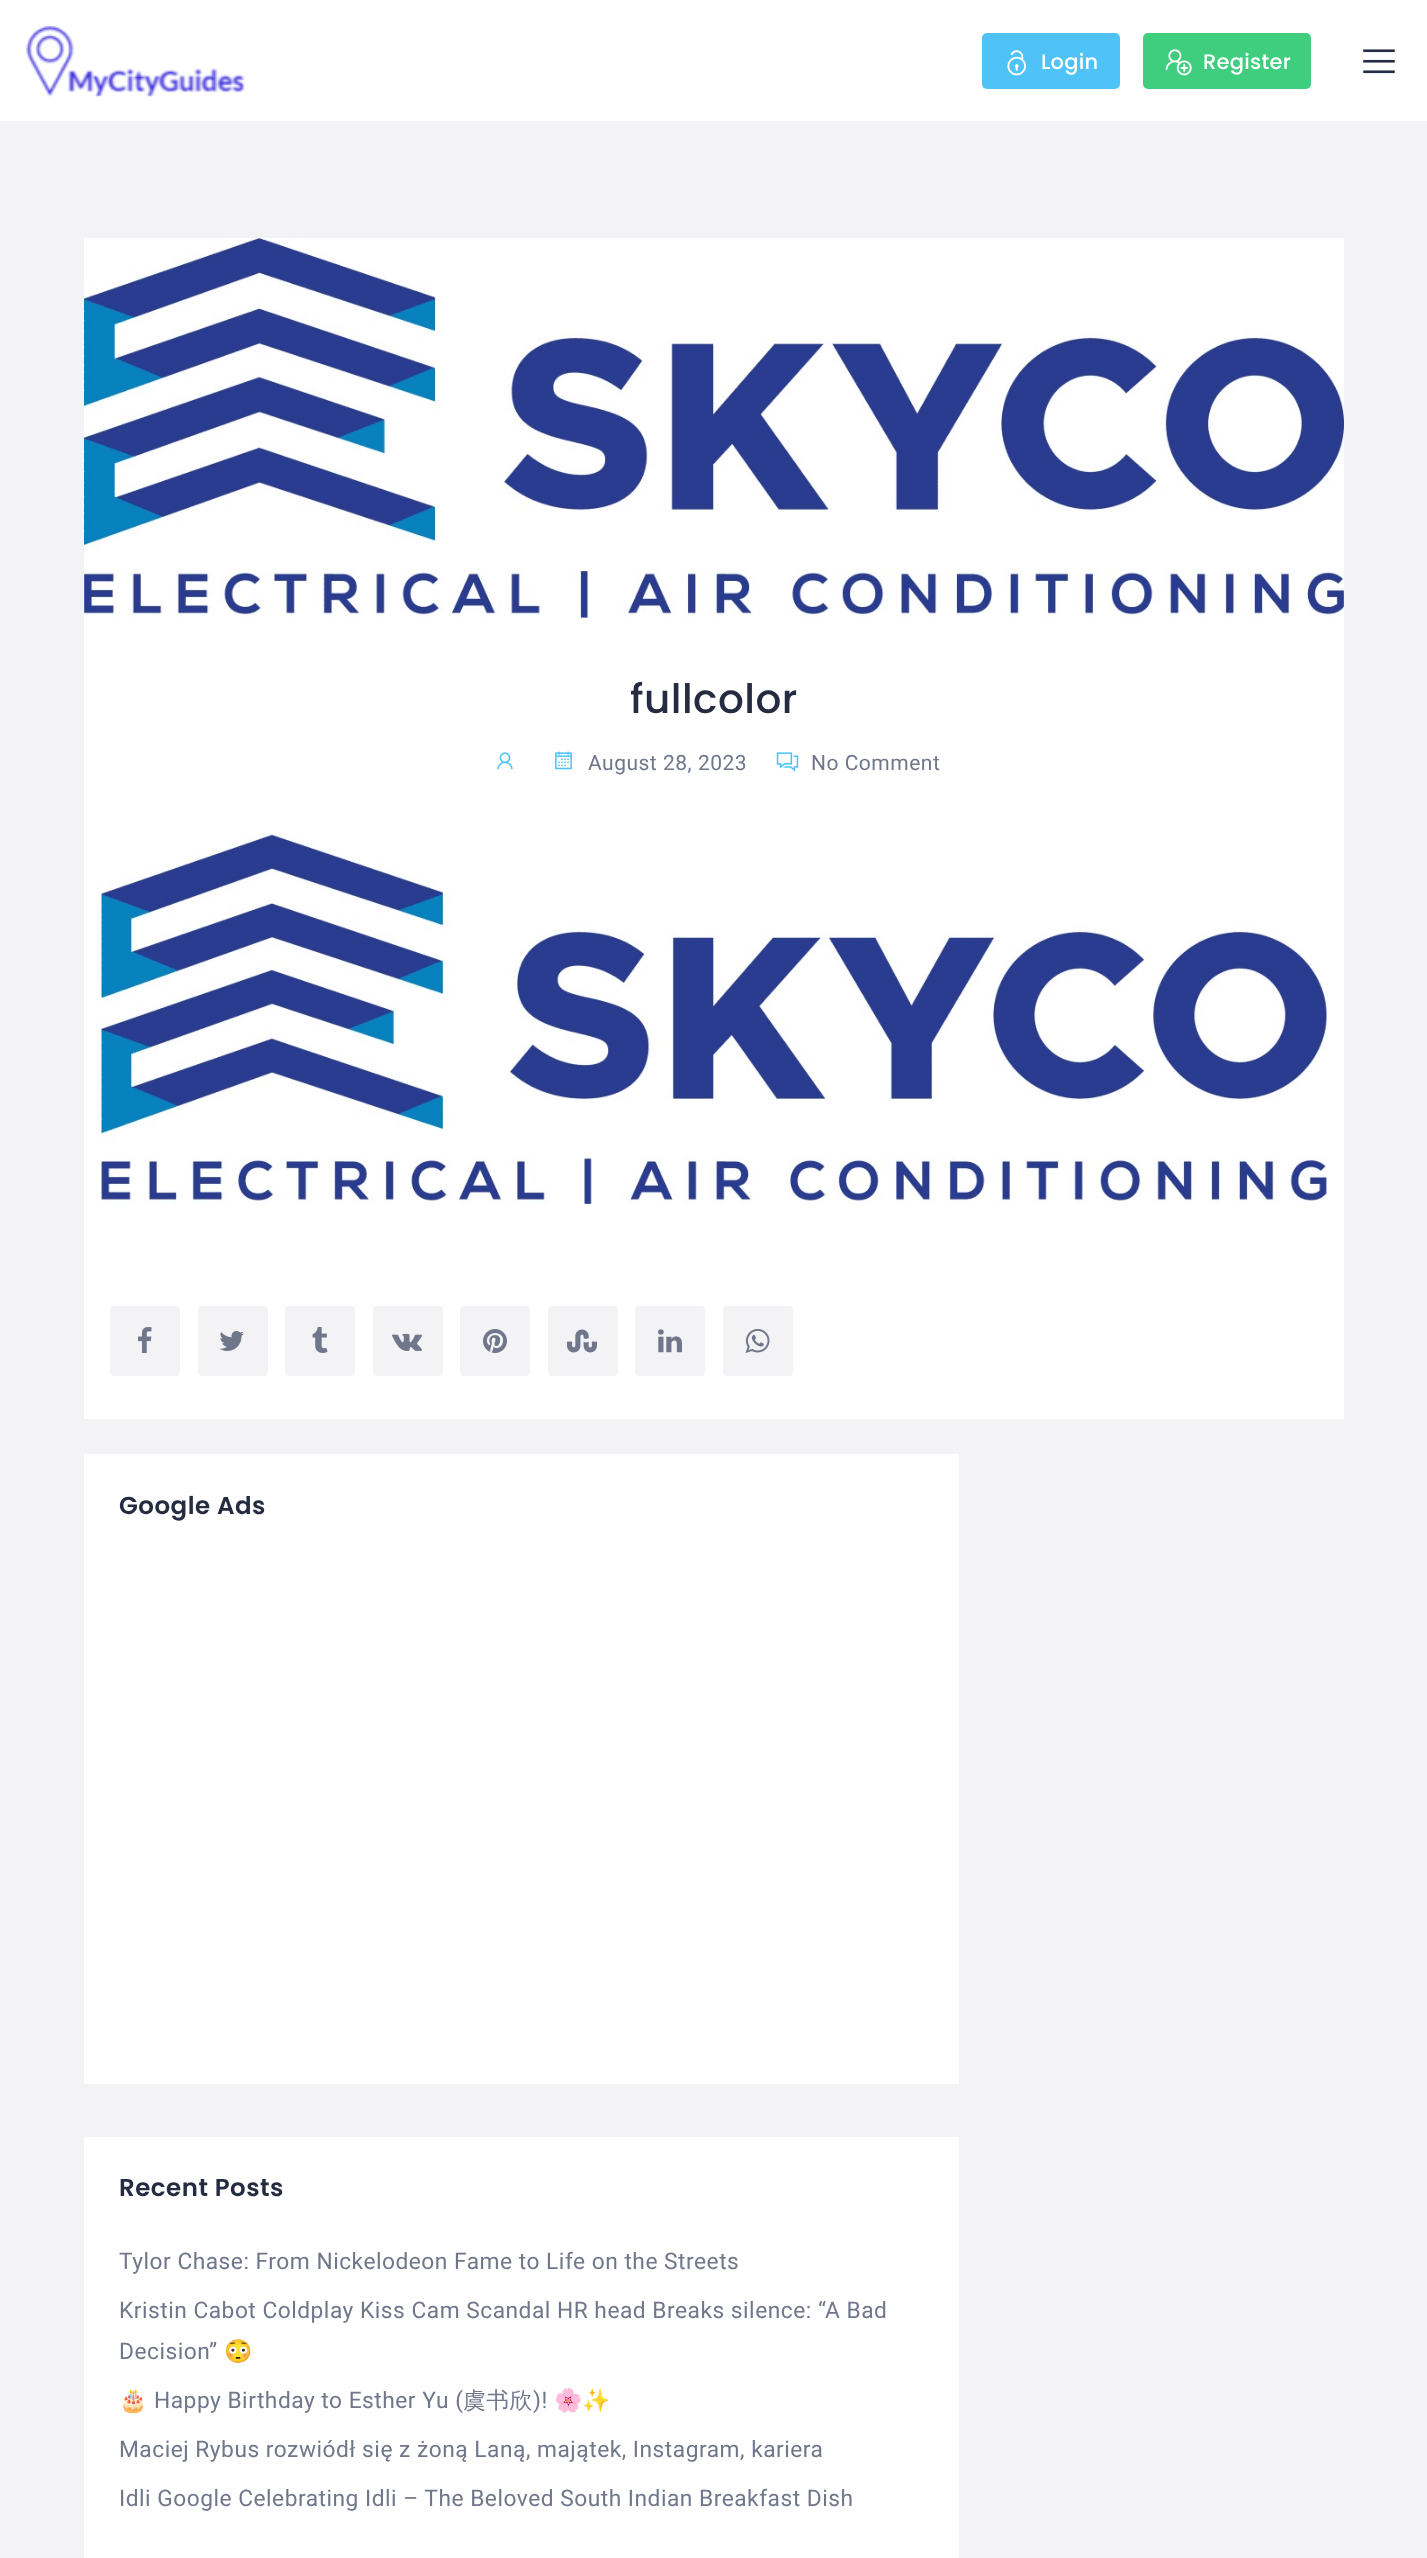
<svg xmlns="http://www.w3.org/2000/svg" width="1427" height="2558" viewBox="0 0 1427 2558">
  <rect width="100%" height="100%" fill="#ffffff"/>
  <image x="26" y="26" width="219" height="71" href="img1.png"/>
  <rect x="982" y="33" width="138" height="56" rx="5" fill="#4fc3f7"/>
  <image x="1007" y="50" width="19" height="26" href="img2.png"/>
  <text x="1041" y="69" font-family="Poppins" font-size="21" font-weight="500" letter-spacing="0.25" fill="#ffffff">Login</text>
  <rect x="1143" y="33" width="168" height="56" rx="5" fill="#3ece7e"/>
  <image x="1165" y="49" width="27" height="27" href="img3.png"/>
  <text x="1203" y="69" font-family="Poppins" font-size="21" font-weight="500" letter-spacing="0.25" fill="#ffffff">Register</text>
  <image x="1363" y="49" width="32" height="25" href="img4.png"/>
  <rect x="0" y="121" width="1427" height="2437" fill="#f3f3f6"/>
  <rect x="84" y="617" width="1260" height="802" fill="#ffffff"/>
  <image x="84" y="238" width="1260" height="380" href="img5.png"/>
  <text x="630" y="713" font-family="Poppins" font-size="40.5" font-weight="500" letter-spacing="0.5" fill="#252c41">fullcolor</text>
  <image x="497" y="752" width="16" height="18" href="img6.png"/>
  <image x="555" y="751" width="17" height="19" href="img7.png"/>
  <text x="588" y="770" font-family="Roboto" font-size="21" letter-spacing="0.5" fill="#70778b">August 28, 2023</text>
  <image x="776" y="752" width="23" height="20" href="img8.png"/>
  <text x="811" y="770" font-family="Roboto" font-size="21" letter-spacing="0.5" fill="#70778b">No Comment</text>
  <image x="101" y="834" width="1226" height="370" href="img9.png"/>
  <rect x="110" y="1306" width="70" height="70" rx="4" fill="#f3f3f6"/>
  <image x="138" y="1327" width="14" height="26" href="img10.png"/>
  <rect x="198" y="1306" width="70" height="70" rx="4" fill="#f3f3f6"/>
  <image x="219" y="1331" width="25" height="20" href="img11.png"/>
  <rect x="285" y="1306" width="70" height="70" rx="4" fill="#f3f3f6"/>
  <image x="312" y="1327" width="16" height="26" href="img12.png"/>
  <rect x="373" y="1306" width="70" height="70" rx="4" fill="#f3f3f6"/>
  <image x="392" y="1333" width="30" height="18" href="img13.png"/>
  <rect x="460" y="1306" width="70" height="70" rx="4" fill="#f3f3f6"/>
  <image x="483" y="1329" width="24" height="24" href="img14.png"/>
  <rect x="548" y="1306" width="70" height="70" rx="4" fill="#f3f3f6"/>
  <image x="567" y="1329" width="30" height="24" href="img15.png"/>
  <rect x="635" y="1306" width="70" height="70" rx="4" fill="#f3f3f6"/>
  <image x="658" y="1329" width="24" height="24" href="img16.png"/>
  <rect x="723" y="1306" width="70" height="70" rx="4" fill="#f3f3f6"/>
  <image x="745" y="1328" width="25" height="25" href="img17.png"/>
  <rect x="84" y="1454" width="875" height="630" fill="#ffffff"/>
  <text x="119" y="1514" font-family="Poppins" font-size="24.5" font-weight="600" letter-spacing="0.5" fill="#252c41">Google Ads</text>
  <rect x="84" y="2137" width="875" height="421" fill="#ffffff"/>
  <text x="119" y="2196" font-family="Poppins" font-size="24.5" font-weight="600" letter-spacing="0.5" fill="#252c41">Recent Posts</text>
  <text x="119" y="2269" font-family="Roboto" font-size="22.75" letter-spacing="0.5" fill="#70778b">Tylor Chase: From Nickelodeon Fame to Life on the Streets</text>
  <text x="119" y="2318" font-family="Roboto" font-size="22.75" letter-spacing="0.5" fill="#70778b">Kristin Cabot Coldplay Kiss Cam Scandal HR head Breaks silence: “A Bad</text>
  <text x="119" y="2359" font-family="Roboto" font-size="22.75" letter-spacing="0.5" fill="#70778b">Decision”</text>
  <text x="224" y="2359" font-family="Noto Color Emoji" font-size="22.75" letter-spacing="0.5" fill="#70778b">😳</text>
  <text x="119" y="2408" font-family="Noto Color Emoji" font-size="22.75" letter-spacing="0.5" fill="#70778b">🎂</text>
  <text x="154" y="2408" font-family="Roboto" font-size="22.75" letter-spacing="0.5" fill="#70778b">Happy Birthday to Esther Yu (</text>
  <text x="463" y="2408" font-family="WenQuanYi Zen Hei" font-size="22.75" font-weight="500" letter-spacing="0.5" fill="#70778b">虞书欣</text>
  <text x="533" y="2408" font-family="Roboto" font-size="22.75" letter-spacing="0.5" fill="#70778b">)!</text>
  <text x="554" y="2408" font-family="Noto Color Emoji" font-size="22.75" letter-spacing="0.5" fill="#70778b">🌸✨</text>
  <text x="119" y="2457" font-family="Roboto" font-size="22.75" letter-spacing="0.5" fill="#70778b">Maciej Rybus rozwiódł się z żoną Laną, majątek, Instagram, kariera</text>
  <text x="119" y="2506" font-family="Roboto" font-size="22.75" letter-spacing="0.5" fill="#70778b">Idli Google Celebrating Idli – The Beloved South Indian Breakfast Dish</text>
</svg>
